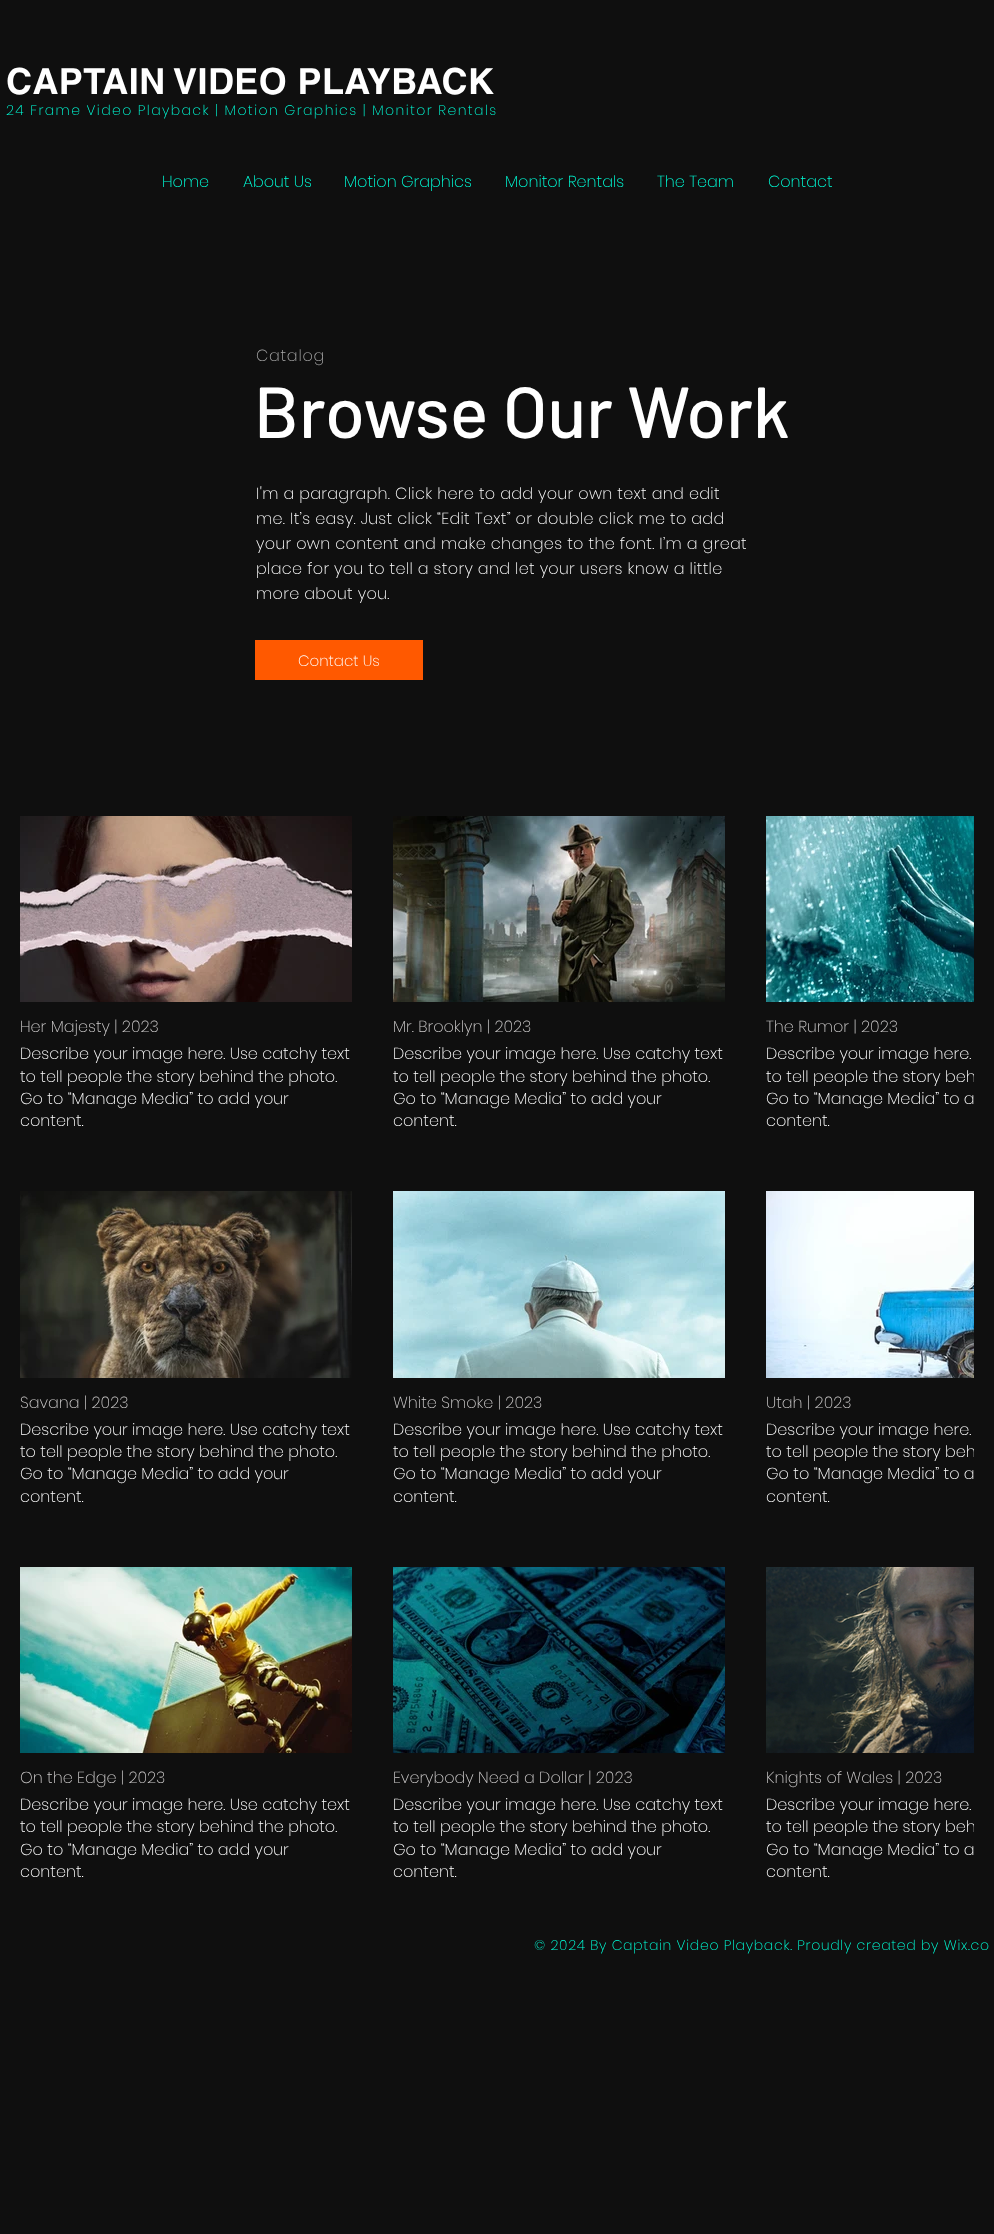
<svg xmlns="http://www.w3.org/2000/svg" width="994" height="2234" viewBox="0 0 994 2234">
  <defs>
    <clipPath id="clip1"><rect x="766" y="1043" width="208" height="90"/></clipPath>
    <clipPath id="clip2"><rect x="766" y="1419" width="208" height="89"/></clipPath>
    <clipPath id="clip3"><rect x="766" y="1794" width="208" height="90"/></clipPath>
  </defs>
  <rect width="100%" height="100%" fill="#0f0f0f"/>
  <text x="6" y="94" font-family="helvetica" font-size="36" font-weight="bold" letter-spacing="0.4" fill="#ffffff">CAPTAIN VIDEO PLAYBACK</text>
  <text x="6" y="115" font-family="Poppins" font-size="14" font-weight="200" letter-spacing="1.4" fill="#00ffd9">24 Frame Video Playback | Motion Graphics | Monitor Rentals</text>
  <text x="162" y="187" font-family="Poppins" font-size="16" font-weight="200" fill="#00ffd9">Home</text>
  <text x="243" y="187" font-family="Poppins" font-size="16" font-weight="200" fill="#00ffd9">About Us</text>
  <text x="344" y="187" font-family="Poppins" font-size="16" font-weight="200" fill="#00ffd9">Motion Graphics</text>
  <text x="505" y="187" font-family="Poppins" font-size="16" font-weight="200" fill="#00ffd9">Monitor Rentals</text>
  <text x="657" y="187" font-family="Poppins" font-size="16" font-weight="200" fill="#00ffd9">The Team</text>
  <text x="768" y="187" font-family="Poppins" font-size="16" font-weight="200" fill="#00ffd9">Contact</text>
  <text x="256" y="361" font-family="Poppins" font-size="16" font-weight="200" letter-spacing="0.75" fill="#a8a8a8">Catalog</text>
  <text x="254" y="438" font-family="Barlow" font-size="72" font-weight="500" fill="#ffffff">Browse Our Work</text>
  <text x="256" y="499" font-family="Poppins" font-size="16" font-weight="200" letter-spacing="0.32" fill="#ffffff">I'm a paragraph. Click here to add your own text and edit</text>
  <text x="256" y="524" font-family="Poppins" font-size="16" font-weight="200" letter-spacing="0.32" fill="#ffffff">me. It’s easy. Just click “Edit Text” or double click me to add</text>
  <text x="256" y="549" font-family="Poppins" font-size="16" font-weight="200" letter-spacing="0.32" fill="#ffffff">your own content and make changes to the font. I’m a great</text>
  <text x="256" y="574" font-family="Poppins" font-size="16" font-weight="200" letter-spacing="0.32" fill="#ffffff">place for you to tell a story and let your users know a little</text>
  <text x="256" y="599" font-family="Poppins" font-size="16" font-weight="200" letter-spacing="0.32" fill="#ffffff">more about you.</text>
  <rect x="255" y="640" width="168" height="40" fill="#ff5900"/>
  <text x="298" y="666" font-family="Poppins" font-size="15" font-weight="200" fill="#ffffff">Contact Us</text>
  <image x="20" y="816" width="332" height="186" href="img1.png"/>
  <text x="20" y="1032" font-family="Poppins" font-size="16" font-weight="200" fill="#cccaca">Her Majesty | 2023</text>
  <text x="20" y="1059" font-family="Poppins" font-size="16" font-weight="200" fill="#ffffff">Describe your image here. Use catchy text</text>
  <text x="20" y="1082" font-family="Poppins" font-size="16" font-weight="200" fill="#ffffff">to tell people the story behind the photo.</text>
  <text x="20" y="1104" font-family="Poppins" font-size="16" font-weight="200" fill="#ffffff">Go to “Manage Media” to add your</text>
  <text x="20" y="1126" font-family="Poppins" font-size="16" font-weight="200" fill="#ffffff">content.</text>
  <image x="393" y="816" width="332" height="186" href="img2.png"/>
  <text x="393" y="1032" font-family="Poppins" font-size="16" font-weight="200" fill="#cccaca">Mr. Brooklyn | 2023</text>
  <text x="393" y="1059" font-family="Poppins" font-size="16" font-weight="200" fill="#ffffff">Describe your image here. Use catchy text</text>
  <text x="393" y="1082" font-family="Poppins" font-size="16" font-weight="200" fill="#ffffff">to tell people the story behind the photo.</text>
  <text x="393" y="1104" font-family="Poppins" font-size="16" font-weight="200" fill="#ffffff">Go to “Manage Media” to add your</text>
  <text x="393" y="1126" font-family="Poppins" font-size="16" font-weight="200" fill="#ffffff">content.</text>
  <image x="766" y="816" width="208" height="186" href="img3.png"/>
  <text x="766" y="1032" font-family="Poppins" font-size="16" font-weight="200" fill="#cccaca">The Rumor | 2023</text>
  <text x="766" y="1059" font-family="Poppins" font-size="16" font-weight="200" fill="#ffffff">Describe your image here.</text>
  <g clip-path="url(#clip1)">
    <text x="766" y="1082" font-family="Poppins" font-size="16" font-weight="200" fill="#ffffff">to tell people the story beh</text>
  </g>
  <text x="766" y="1104" font-family="Poppins" font-size="16" font-weight="200" fill="#ffffff">Go to “Manage Media” to a</text>
  <text x="766" y="1126" font-family="Poppins" font-size="16" font-weight="200" fill="#ffffff">content.</text>
  <image x="20" y="1191" width="332" height="187" href="img4.png"/>
  <text x="20" y="1408" font-family="Poppins" font-size="16" font-weight="200" fill="#cccaca">Savana | 2023</text>
  <text x="20" y="1435" font-family="Poppins" font-size="16" font-weight="200" fill="#ffffff">Describe your image here. Use catchy text</text>
  <text x="20" y="1457" font-family="Poppins" font-size="16" font-weight="200" fill="#ffffff">to tell people the story behind the photo.</text>
  <text x="20" y="1479" font-family="Poppins" font-size="16" font-weight="200" fill="#ffffff">Go to “Manage Media” to add your</text>
  <text x="20" y="1502" font-family="Poppins" font-size="16" font-weight="200" fill="#ffffff">content.</text>
  <image x="393" y="1191" width="332" height="187" href="img5.png"/>
  <text x="393" y="1408" font-family="Poppins" font-size="16" font-weight="200" fill="#cccaca">White Smoke | 2023</text>
  <text x="393" y="1435" font-family="Poppins" font-size="16" font-weight="200" fill="#ffffff">Describe your image here. Use catchy text</text>
  <text x="393" y="1457" font-family="Poppins" font-size="16" font-weight="200" fill="#ffffff">to tell people the story behind the photo.</text>
  <text x="393" y="1479" font-family="Poppins" font-size="16" font-weight="200" fill="#ffffff">Go to “Manage Media” to add your</text>
  <text x="393" y="1502" font-family="Poppins" font-size="16" font-weight="200" fill="#ffffff">content.</text>
  <image x="766" y="1191" width="208" height="187" href="img6.png"/>
  <text x="766" y="1408" font-family="Poppins" font-size="16" font-weight="200" fill="#cccaca">Utah | 2023</text>
  <text x="766" y="1435" font-family="Poppins" font-size="16" font-weight="200" fill="#ffffff">Describe your image here.</text>
  <g clip-path="url(#clip2)">
    <text x="766" y="1457" font-family="Poppins" font-size="16" font-weight="200" fill="#ffffff">to tell people the story beh</text>
  </g>
  <text x="766" y="1479" font-family="Poppins" font-size="16" font-weight="200" fill="#ffffff">Go to “Manage Media” to a</text>
  <text x="766" y="1502" font-family="Poppins" font-size="16" font-weight="200" fill="#ffffff">content.</text>
  <image x="20" y="1567" width="332" height="186" href="img7.png"/>
  <text x="20" y="1783" font-family="Poppins" font-size="16" font-weight="200" fill="#cccaca">On the Edge | 2023</text>
  <text x="20" y="1810" font-family="Poppins" font-size="16" font-weight="200" fill="#ffffff">Describe your image here. Use catchy text</text>
  <text x="20" y="1832" font-family="Poppins" font-size="16" font-weight="200" fill="#ffffff">to tell people the story behind the photo.</text>
  <text x="20" y="1855" font-family="Poppins" font-size="16" font-weight="200" fill="#ffffff">Go to “Manage Media” to add your</text>
  <text x="20" y="1877" font-family="Poppins" font-size="16" font-weight="200" fill="#ffffff">content.</text>
  <image x="393" y="1567" width="332" height="186" href="img8.png"/>
  <text x="393" y="1783" font-family="Poppins" font-size="16" font-weight="200" fill="#cccaca">Everybody Need a Dollar | 2023</text>
  <text x="393" y="1810" font-family="Poppins" font-size="16" font-weight="200" fill="#ffffff">Describe your image here. Use catchy text</text>
  <text x="393" y="1832" font-family="Poppins" font-size="16" font-weight="200" fill="#ffffff">to tell people the story behind the photo.</text>
  <text x="393" y="1855" font-family="Poppins" font-size="16" font-weight="200" fill="#ffffff">Go to “Manage Media” to add your</text>
  <text x="393" y="1877" font-family="Poppins" font-size="16" font-weight="200" fill="#ffffff">content.</text>
  <image x="766" y="1567" width="208" height="186" href="img9.png"/>
  <text x="766" y="1783" font-family="Poppins" font-size="16" font-weight="200" fill="#cccaca">Knights of Wales | 2023</text>
  <text x="766" y="1810" font-family="Poppins" font-size="16" font-weight="200" fill="#ffffff">Describe your image here.</text>
  <g clip-path="url(#clip3)">
    <text x="766" y="1832" font-family="Poppins" font-size="16" font-weight="200" fill="#ffffff">to tell people the story beh</text>
  </g>
  <text x="766" y="1855" font-family="Poppins" font-size="16" font-weight="200" fill="#ffffff">Go to “Manage Media” to a</text>
  <text x="766" y="1877" font-family="Poppins" font-size="16" font-weight="200" fill="#ffffff">content.</text>
  <text x="534" y="1950" font-family="Poppins" font-size="14" font-weight="200" letter-spacing="0.7" fill="#00ffd9">© 2024 By Captain Video Playback. Proudly created by Wix.co</text>
</svg>
